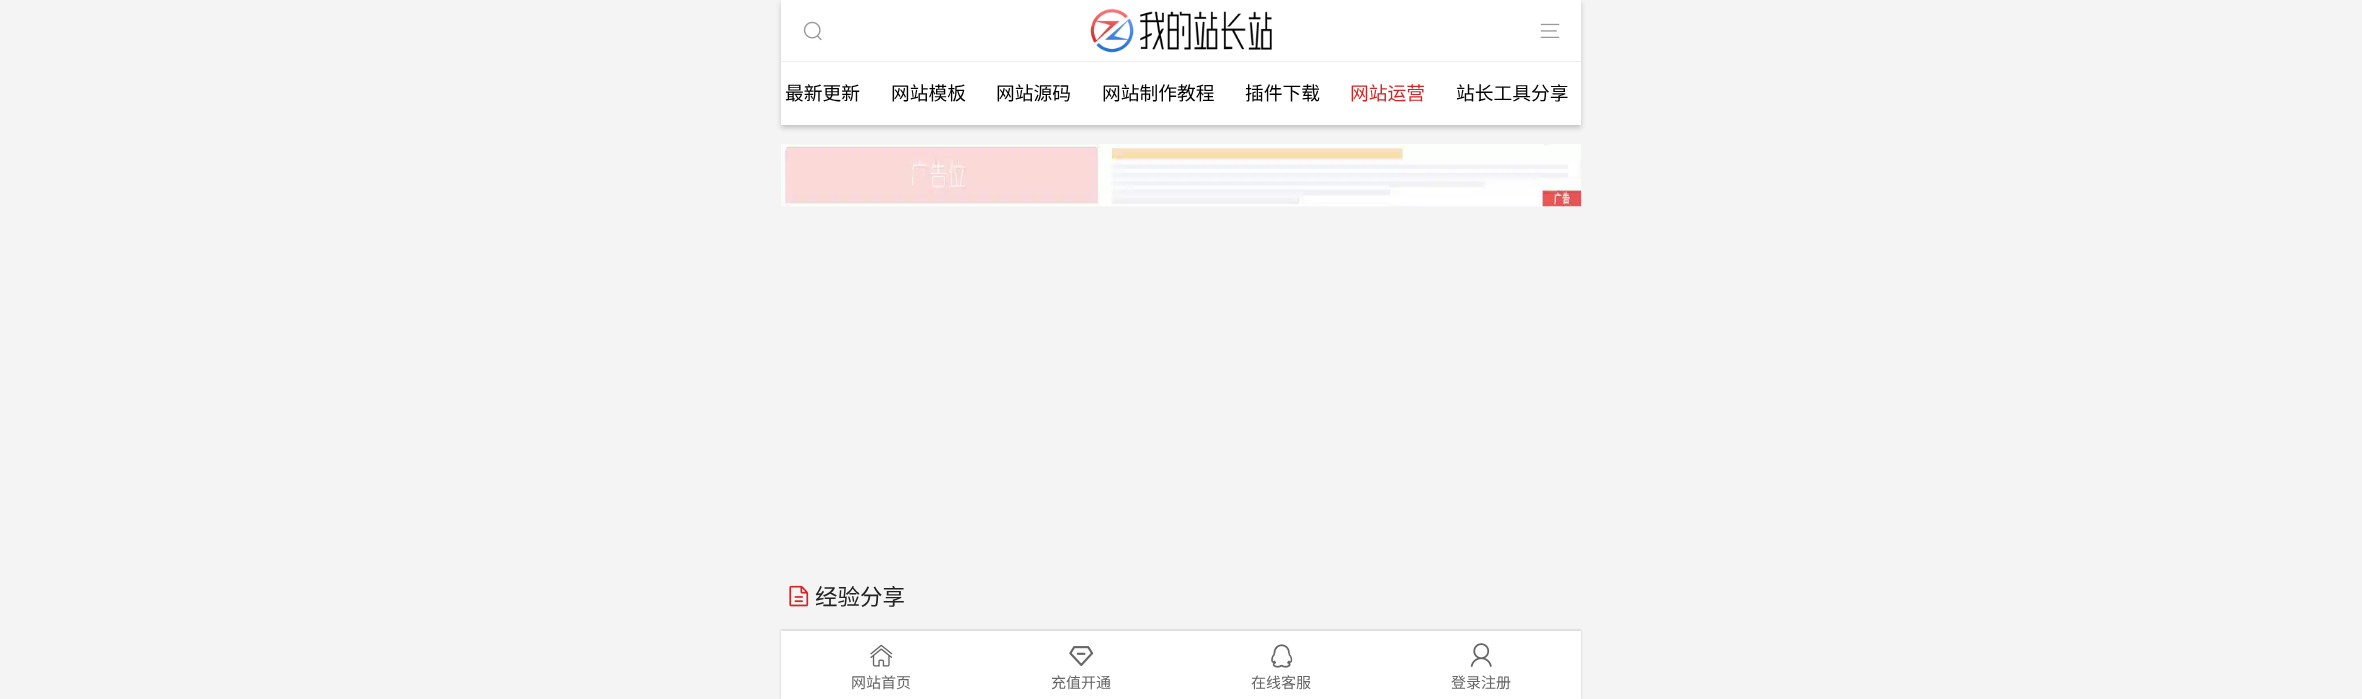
<svg xmlns="http://www.w3.org/2000/svg" width="2362" height="699" viewBox="0 0 2362 699">
  <defs>
    <filter id="blur1" x="-50%" y="-200%" width="200%" height="500%"><feGaussianBlur stdDeviation="2.5"/></filter>
    <filter id="blur2" x="-50%" y="-200%" width="200%" height="500%"><feGaussianBlur stdDeviation="1"/></filter>
  </defs>
  <rect width="100%" height="100%" fill="#f4f4f4"/>
  <rect x="781" y="3" width="800" height="125" fill="#000000" fill-opacity="0.2" filter="url(#blur1)"/>
  <rect x="781" y="0" width="800" height="125" fill="#ffffff"/>
  <rect x="781" y="61" width="800" height="1" fill="#ededed"/>
  <image x="803" y="21" width="19" height="20" href="img1.png"/>
  <image x="1090" y="8" width="182" height="45" href="img2.png"/>
  <image x="1540" y="23" width="20" height="15" href="img3.png"/>
  <text x="785" y="100" font-family="Noto Sans CJK SC" font-size="18.75" fill="#000000">最新更新</text>
  <text x="891" y="100" font-family="Noto Sans CJK SC" font-size="18.75" fill="#000000">网站模板</text>
  <text x="996" y="100" font-family="Noto Sans CJK SC" font-size="18.75" fill="#000000">网站源码</text>
  <text x="1102" y="100" font-family="Noto Sans CJK SC" font-size="18.75" fill="#000000">网站制作教程</text>
  <text x="1245" y="100" font-family="Noto Sans CJK SC" font-size="18.75" fill="#000000">插件下载</text>
  <text x="1350" y="100" font-family="Noto Sans CJK SC" font-size="18.75" fill="#d22525">网站运营</text>
  <text x="1456" y="100" font-family="Noto Sans CJK SC" font-size="18.75" fill="#000000">站长工具分享</text>
  <rect x="781" y="144" width="1" height="62" fill="#ffffff"/>
  <image x="781" y="144" width="801" height="63" href="img4.png"/>
  <image x="789" y="585" width="20" height="22" href="img5.png"/>
  <text x="815" y="605" font-family="Noto Sans CJK SC" font-size="22.5" fill="#222222">经验分享</text>
  <rect x="781" y="630" width="800" height="1" fill="#ffffff"/>
  <rect x="781" y="630" width="800" height="69" fill="#000000" fill-opacity="0.2" filter="url(#blur2)"/>
  <rect x="781" y="631" width="800" height="68" fill="#ffffff"/>
  <image x="870" y="644" width="23" height="23" href="img6.png"/>
  <text x="851" y="688" font-family="Noto Sans CJK SC" font-size="15" fill="#666666">网站首页</text>
  <image x="1069" y="646" width="25" height="21" href="img7.png"/>
  <text x="1051" y="688" font-family="Noto Sans CJK SC" font-size="15" fill="#666666">充值开通</text>
  <image x="1271" y="644" width="22" height="24" href="img8.png"/>
  <text x="1251" y="688" font-family="Noto Sans CJK SC" font-size="15" fill="#666666">在线客服</text>
  <image x="1470" y="643" width="22" height="24" href="img9.png"/>
  <text x="1451" y="688" font-family="Noto Sans CJK SC" font-size="15" fill="#666666">登录注册</text>
</svg>
